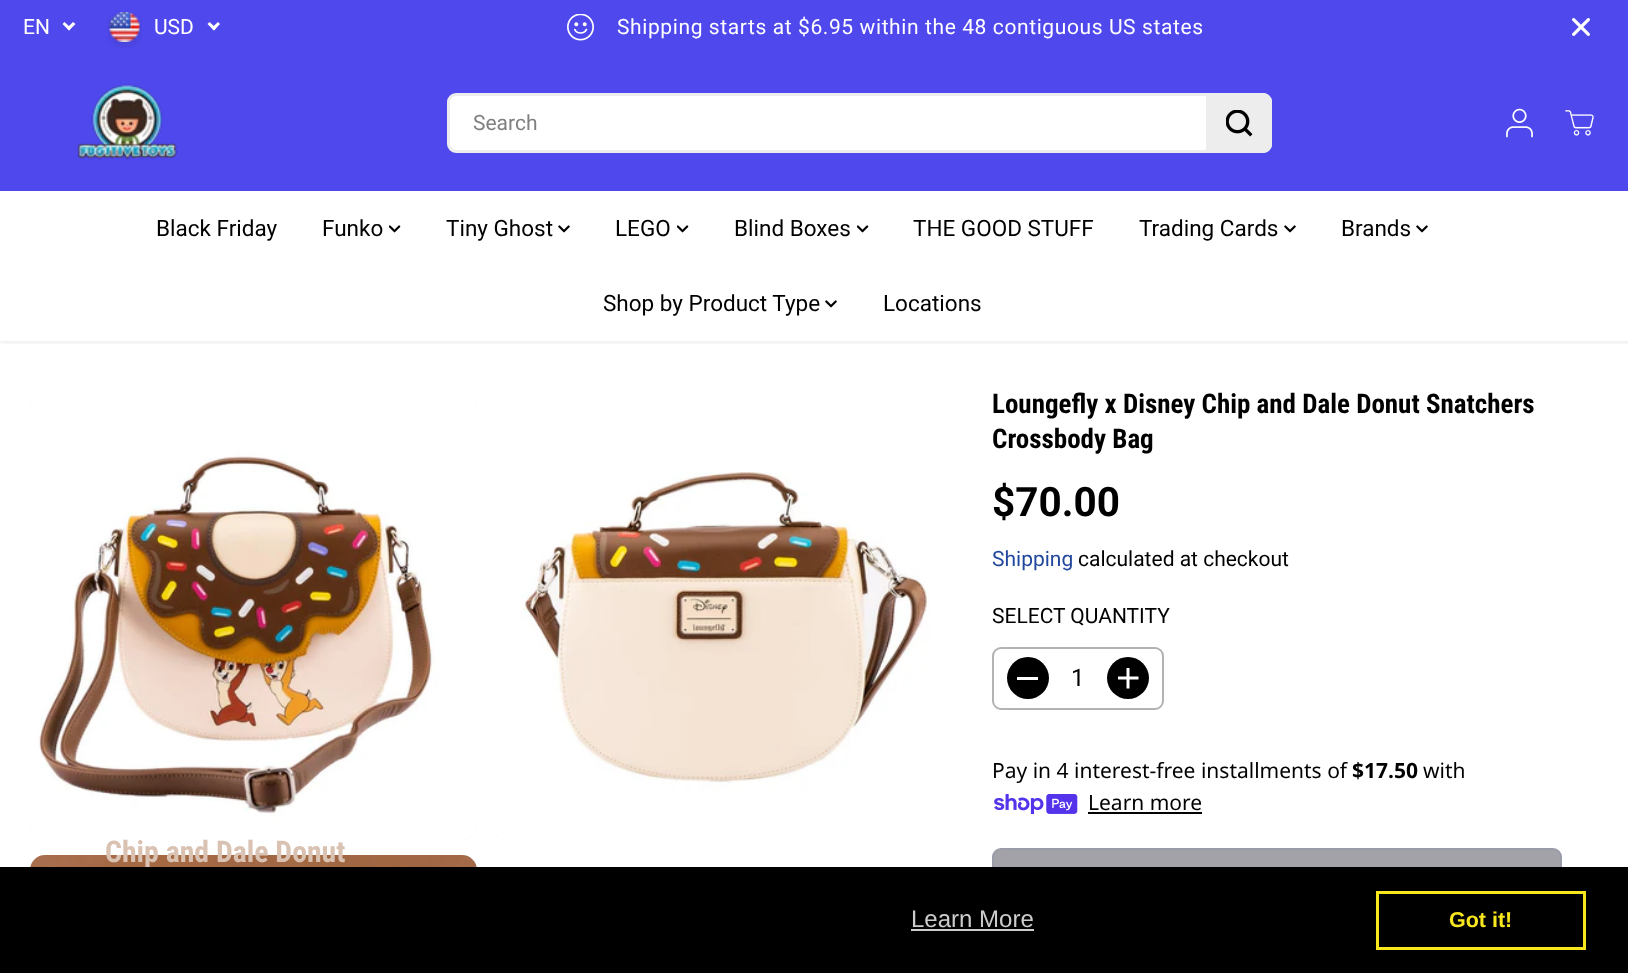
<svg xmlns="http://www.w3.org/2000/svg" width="1628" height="973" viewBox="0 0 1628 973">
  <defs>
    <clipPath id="clip1"><rect x="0" y="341" width="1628" height="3"/></clipPath>
    <filter id="blur1" x="-50%" y="-200%" width="200%" height="500%"><feGaussianBlur stdDeviation="1.5"/></filter>
  </defs>
  <rect width="100%" height="100%" fill="#ffffff"/>
  <rect x="0" y="54" width="1628" height="137" fill="#4f48ec"/>
  <g clip-path="url(#clip1)">
    <rect x="0" y="57" width="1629" height="287" fill="#000000" fill-opacity="0.05" filter="url(#blur1)"/>
  </g>
  <rect x="0" y="0" width="1628" height="54" fill="#4f48ec"/>
  <text x="23" y="34" font-family="Roboto" font-size="21" fill="#ffffff">EN</text>
  <path d="M73 22L75.5 24L69 30.5L67 28Z" fill="#ffffff"/>
  <path d="M64.5 22L71 28L69 30.5L62.5 24Z" fill="#ffffff"/>
  <image x="107" y="12" width="35" height="36" href="img1.png"/>
  <text x="154" y="34" font-family="Roboto" font-size="21" fill="#ffffff">USD</text>
  <path d="M218 22L220 24L214 30.5L211.5 28Z" fill="#ffffff"/>
  <path d="M209.5 22L216 28L214 30.5L207.5 24Z" fill="#ffffff"/>
  <image x="567" y="14" width="27" height="27" href="img2.png"/>
  <text x="617" y="34" font-family="Roboto" font-size="21" letter-spacing="0.6" fill="#ffffff">Shipping starts at $6.95 within the 48 contiguous US states</text>
  <image x="1572" y="18" width="18" height="18" href="img3.png"/>
  <image x="77" y="84" width="101" height="76" href="img4.png"/>
  <rect x="448.5" y="94.5" width="822" height="57" rx="7.5" fill="#ffffff" stroke="#ededed" stroke-width="3"/>
  <text x="473" y="130" font-family="Roboto" font-size="21" fill="#808080">Search</text>
  <path d="M1206 93H1263C1268 93 1272 97 1272 102V144C1272 149 1268 153 1263 153H1206Z" fill="#ededed"/>
  <image x="1226" y="110" width="27" height="27" href="img5.png"/>
  <image x="1506" y="108" width="27" height="30" href="img6.png"/>
  <image x="1565" y="110" width="29" height="26" href="img7.png"/>
  <rect x="0" y="340" width="1628" height="1" fill="#ffffff"/>
  <text x="156" y="236" font-family="Roboto" font-size="22.5" fill="#000000">Black Friday</text>
  <text x="322" y="236" font-family="Roboto" font-size="22.5" fill="#000000">Funko</text>
  <image x="389" y="225" width="12" height="8" href="img8.png"/>
  <text x="446" y="236" font-family="Roboto" font-size="22.5" fill="#000000">Tiny Ghost</text>
  <image x="558" y="225" width="12" height="8" href="img9.png"/>
  <text x="615" y="236" font-family="Roboto" font-size="22.5" fill="#000000">LEGO</text>
  <image x="677" y="225" width="12" height="8" href="img8.png"/>
  <text x="734" y="236" font-family="Roboto" font-size="22.5" fill="#000000">Blind Boxes</text>
  <image x="857" y="225" width="12" height="8" href="img8.png"/>
  <text x="913" y="236" font-family="Roboto" font-size="22.5" fill="#000000">THE GOOD STUFF</text>
  <text x="1139" y="236" font-family="Roboto" font-size="22.5" fill="#000000">Trading Cards</text>
  <image x="1284" y="225" width="12" height="8" href="img9.png"/>
  <text x="1341" y="236" font-family="Roboto" font-size="22.5" fill="#000000">Brands</text>
  <image x="1416" y="225" width="12" height="8" href="img9.png"/>
  <text x="603" y="311" font-family="Roboto" font-size="22.5" fill="#000000">Shop by Product Type</text>
  <image x="825" y="300" width="12" height="8" href="img9.png"/>
  <text x="883" y="311" font-family="Roboto" font-size="22.5" fill="#000000">Locations</text>
  <rect x="30" y="393" width="447" height="447" rx="15" fill="#efeef1"/>
  <image x="30" y="393" width="447" height="447" href="img10.png"/>
  <rect x="492" y="393" width="447" height="447" rx="15" fill="#efeef1"/>
  <image x="492" y="393" width="447" height="447" href="img11.png"/>
  <image x="30" y="855" width="447" height="12" href="img12.png"/>
  <image x="492" y="855" width="447" height="12" href="img13.png"/>
  <text x="992" y="413" font-family="Roboto Condensed" font-size="27" font-weight="bold" fill="#000000">Loungefly x Disney Chip and Dale Donut Snatchers</text>
  <text x="992" y="448" font-family="Roboto Condensed" font-size="27" font-weight="bold" fill="#000000">Crossbody Bag</text>
  <text x="992" y="516" font-family="Roboto" font-size="40.5" font-weight="bold" fill="#000000">$70.00</text>
  <text x="992" y="566" font-family="Roboto" font-size="21" fill="#22489e">Shipping</text>
  <text x="1078" y="566" font-family="Roboto" font-size="21" fill="#000000">calculated at checkout</text>
  <text x="992" y="623" font-family="Roboto" font-size="21" fill="#000000">SELECT QUANTITY</text>
  <rect x="993" y="648" width="170" height="61" rx="8" fill="none" stroke="#b3b3b3" stroke-width="2"/>
  <circle cx="1028" cy="678" r="21" fill="#000000"/>
  <rect x="1017" y="677" width="21" height="3" fill="#ffffff"/>
  <text x="1071" y="686" font-family="Roboto" font-size="24" fill="#000000">1</text>
  <circle cx="1128" cy="678" r="21" fill="#000000"/>
  <image x="1118" y="668" width="21" height="21" href="img14.png"/>
  <text x="992" y="778" font-family="Noto Sans" font-size="21" fill="#000000">Pay in 4 interest-free installments of</text>
  <text x="1352" y="778" font-family="Noto Sans" font-size="21" font-weight="bold" fill="#000000">$17.50</text>
  <text x="1423" y="778" font-family="Noto Sans" font-size="21" fill="#000000">with</text>
  <image x="994" y="794" width="84" height="21" href="img15.png"/>
  <text x="1088" y="810" font-family="Noto Sans" font-size="21" fill="#000000">Learn more</text>
  <rect x="1088" y="812" width="114" height="2" fill="#000000"/>
  <rect x="993" y="849" width="568" height="73" rx="8" fill="#a3a2a9" stroke="#9a9ca9" stroke-width="2"/>
  <text x="105" y="862" font-family="Roboto Condensed" font-size="29.75" font-weight="bold" fill="#dac2b3">Chip and Dale Donut</text>
  <rect x="0" y="867" width="1628" height="106" fill="#000000"/>
  <text x="911" y="927" font-family="Liberation Sans" font-size="24" fill="#cccccc">Learn More</text>
  <rect x="911" y="929" width="123" height="2" fill="#cccccc"/>
  <rect x="1377.5" y="892.5" width="207" height="56" fill="none" stroke="#f8e71c" stroke-width="3"/>
  <text x="1449" y="927" font-family="Liberation Sans" font-size="21.5" font-weight="bold" fill="#f8e71c">Got it!</text>
</svg>
